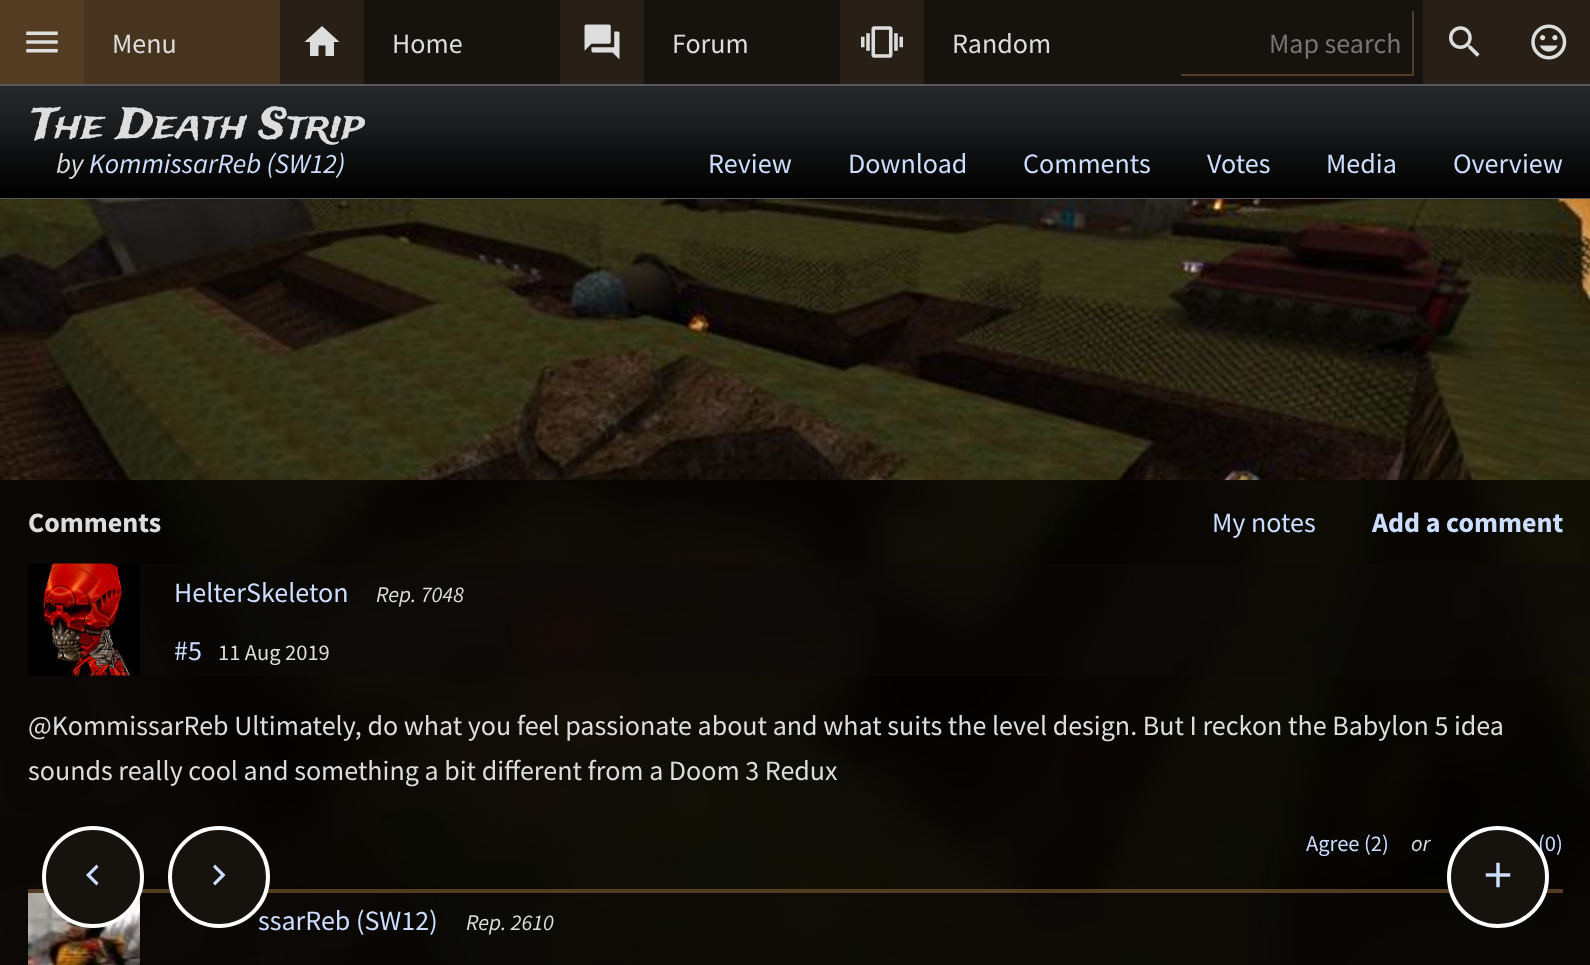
<svg xmlns="http://www.w3.org/2000/svg" width="1590" height="965" viewBox="0 0 1590 965">
  <rect width="100%" height="100%" fill="#ffffff"/>
  <rect x="364" y="0" width="1059" height="84" fill="#16130f"/>
  <rect x="0" y="0" width="84" height="84" fill="#543c22"/>
  <image x="26" y="31" width="32" height="22" href="img1.png"/>
  <rect x="84" y="0" width="196" height="84" fill="#47341f"/>
  <text x="112" y="53" font-family="Source Sans Pro" font-size="28" fill="#dddddd">Menu</text>
  <rect x="280" y="0" width="84" height="84" fill="#282016"/>
  <path d="M318.5 56H310V42H304.5L322 26L339.5 42H334V56H325.5V45.5H318.5Z" fill="#dddddd"/>
  <text x="392" y="53" font-family="Source Sans Pro" font-size="28" fill="#dddddd">Home</text>
  <rect x="560" y="0" width="84" height="84" fill="#282016"/>
  <image x="584" y="24" width="36" height="36" href="img2.png"/>
  <text x="672" y="53" font-family="Source Sans Pro" font-size="28" fill="#dddddd">Forum</text>
  <rect x="840" y="0" width="84" height="84" fill="#282016"/>
  <image x="861" y="26" width="42" height="32" href="img3.png"/>
  <text x="952" y="53" font-family="Source Sans Pro" font-size="28" fill="#dddddd">Random</text>
  <rect x="1412" y="11" width="2" height="64" fill="#543c22"/>
  <rect x="1181" y="74" width="233" height="2" fill="#543c22"/>
  <text x="1269" y="53" font-family="Source Sans Pro" font-size="28" fill="#757575">Map search</text>
  <rect x="1423" y="0" width="167" height="84" fill="#282016"/>
  <image x="1449" y="26" width="31" height="31" href="img4.png"/>
  <image x="1531" y="24" width="36" height="36" href="img5.png"/>
  <image x="0" y="86" width="1590" height="112" href="img6.png"/>
  <rect x="0" y="84" width="1590" height="2" fill="#56585d"/>
  <rect x="0" y="198" width="1590" height="1" fill="#56585d"/>
  <text x="32" y="138" font-family="Trade Winds" font-size="42" fill="#dddddd">The Death Strip</text>
  <text x="56" y="173" font-family="Source Sans Pro" font-size="28" font-style="italic" fill="#dddddd">by</text>
  <text x="89" y="173" font-family="Source Sans Pro" font-size="28" font-style="italic" fill="#ccddff">KommissarReb (SW12)</text>
  <text x="708" y="173" font-family="Source Sans Pro" font-size="28" fill="#ccddff">Review</text>
  <text x="848" y="173" font-family="Source Sans Pro" font-size="28" fill="#ccddff">Download</text>
  <text x="1023" y="173" font-family="Source Sans Pro" font-size="28" fill="#ccddff">Comments</text>
  <text x="1207" y="173" font-family="Source Sans Pro" font-size="28" fill="#ccddff">Votes</text>
  <text x="1326" y="173" font-family="Source Sans Pro" font-size="28" fill="#ccddff">Media</text>
  <text x="1453" y="173" font-family="Source Sans Pro" font-size="28" fill="#ccddff">Overview</text>
  <image x="0" y="480" width="1590" height="485" href="img7.png"/>
  <image x="0" y="199" width="1590" height="281" href="img8.png"/>
  <text x="28" y="532" font-family="Source Sans Pro" font-size="28" font-weight="bold" fill="#dddddd">Comments</text>
  <text x="1212" y="532" font-family="Source Sans Pro" font-size="28" fill="#ccddff">My notes</text>
  <text x="1372" y="532" font-family="Source Sans Pro" font-size="28" font-weight="bold" fill="#ccddff">Add a comment</text>
  <rect x="111" y="564" width="1479" height="112" fill="#0b0a08" fill-opacity="0.5"/>
  <image x="28" y="563" width="112" height="113" href="img9.png"/>
  <text x="174" y="602" font-family="Source Sans Pro" font-size="28" fill="#ccddff">HelterSkeleton</text>
  <text x="376" y="602" font-family="Source Sans Pro" font-size="22.5" font-style="italic" fill="#dddddd">Rep. 7048</text>
  <text x="174" y="660" font-family="Source Sans Pro" font-size="28" fill="#ccddff">#5</text>
  <text x="218" y="660" font-family="Source Sans Pro" font-size="22.5" fill="#dddddd">11 Aug 2019</text>
  <text x="28" y="735" font-family="Source Sans Pro" font-size="28" fill="#dddddd">@KommissarReb Ultimately, do what you feel passionate about and what suits the level design. But I reckon the Babylon 5 idea</text>
  <text x="28" y="780" font-family="Source Sans Pro" font-size="28" fill="#dddddd">sounds really cool and something a bit different from a Doom 3 Redux</text>
  <rect x="28" y="889" width="1535" height="4" fill="#543c22"/>
  <text x="1306" y="851" font-family="Source Sans Pro" font-size="22.5" fill="#ccddff">Agree (2)</text>
  <text x="1411" y="851" font-family="Source Sans Pro" font-size="22.5" font-style="italic" fill="#dddddd">or</text>
  <text x="1538" y="851" font-family="Source Sans Pro" font-size="22.5" fill="#ccddff">(0)</text>
  <rect x="257" y="893" width="1333" height="72" fill="#0b0a08" fill-opacity="0.5"/>
  <image x="28" y="893" width="112" height="72" href="img10.png"/>
  <text x="258" y="930" font-family="Source Sans Pro" font-size="28" fill="#ccddff">ssarReb (SW12)</text>
  <text x="466" y="930" font-family="Source Sans Pro" font-size="22.5" font-style="italic" fill="#dddddd">Rep. 2610</text>
  <circle cx="93" cy="877" r="49" fill="#16130f" stroke="#ffffff" stroke-width="4"/>
  <path d="M98.5 867L90.5 875L98.5 883L96.5 885.5L86 875L96.5 864.5Z" fill="#ccddff"/>
  <circle cx="219" cy="877" r="49" fill="#16130f" stroke="#ffffff" stroke-width="4"/>
  <path d="M215 864.5L225.5 875L215 885.5L213 883L221 875L213 867Z" fill="#ccddff"/>
  <circle cx="1498" cy="877" r="49" fill="#16130f" stroke="#ffffff" stroke-width="4"/>
  <image x="1485" y="862" width="26" height="26" href="img11.png"/>
</svg>
